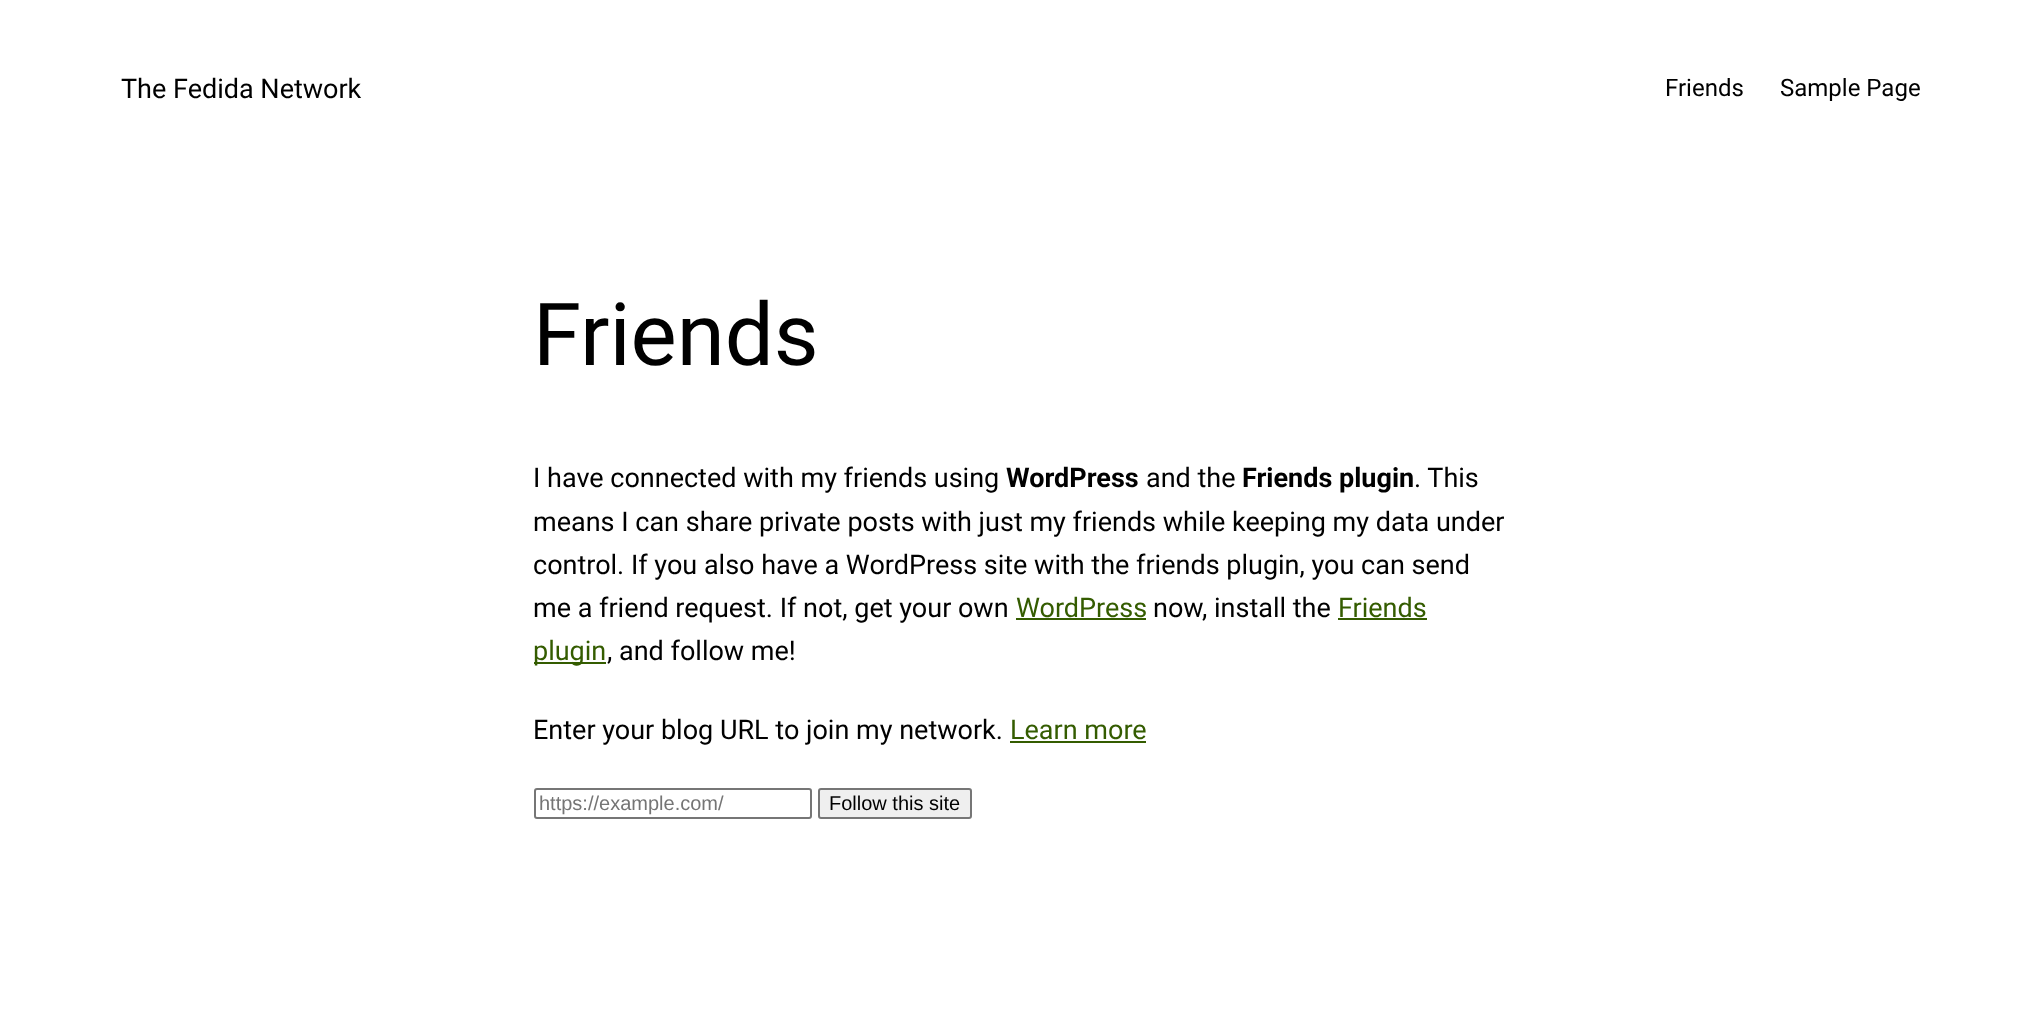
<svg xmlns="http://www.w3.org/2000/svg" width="2041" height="1012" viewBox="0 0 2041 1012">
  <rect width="100%" height="100%" fill="#ffffff"/>
  <text x="121" y="98" font-family="Roboto" font-size="27" fill="#000000">The Fedida Network</text>
  <text x="1665" y="96" font-family="Roboto" font-size="24" fill="#000000">Friends</text>
  <text x="1780" y="96" font-family="Roboto" font-size="24" fill="#000000">Sample Page</text>
  <text x="533" y="365" font-family="Roboto" font-size="87" fill="#000000">Friends</text>
  <text x="533" y="487" font-family="Roboto" font-size="27" fill="#000000">I have connected with my friends using</text>
  <text x="1006" y="487" font-family="Roboto" font-size="27" font-weight="bold" fill="#000000">WordPress</text>
  <text x="1146" y="487" font-family="Roboto" font-size="27" fill="#000000">and the</text>
  <text x="1242" y="487" font-family="Roboto" font-size="27" font-weight="bold" fill="#000000">Friends plugin</text>
  <text x="1414" y="487" font-family="Roboto" font-size="27" fill="#000000">. This</text>
  <text x="533" y="531" font-family="Roboto" font-size="27" fill="#000000">means I can share private posts with just my friends while keeping my data under</text>
  <text x="533" y="574" font-family="Roboto" font-size="27" fill="#000000">control. If you also have a WordPress site with the friends plugin, you can send</text>
  <text x="533" y="617" font-family="Roboto" font-size="27" fill="#000000">me a friend request. If not, get your own</text>
  <text x="1016" y="617" font-family="Roboto" font-size="27" fill="#345c00">WordPress</text>
  <rect x="1016" y="618" width="130" height="2" fill="#345c00"/>
  <text x="1153" y="617" font-family="Roboto" font-size="27" fill="#000000">now, install the</text>
  <text x="1338" y="617" font-family="Roboto" font-size="27" fill="#345c00">Friends</text>
  <rect x="1338" y="618" width="89" height="2" fill="#345c00"/>
  <rect x="534" y="662" width="72" height="2" fill="#345c00"/>
  <text x="533" y="660" font-family="Roboto" font-size="27" fill="#345c00">plugin</text>
  <text x="607" y="660" font-family="Roboto" font-size="27" fill="#000000">, and follow me!</text>
  <text x="533" y="739" font-family="Roboto" font-size="27" fill="#000000">Enter your blog URL to join my network.</text>
  <text x="1010" y="739" font-family="Roboto" font-size="27" fill="#345c00">Learn more</text>
  <rect x="1010" y="741" width="136" height="2" fill="#345c00"/>
  <rect x="535" y="789" width="276" height="29" rx="2" fill="none" stroke="#767676" stroke-width="2"/>
  <text x="539" y="810" font-family="Liberation Sans" font-size="20" fill="#757575">https://example.com/</text>
  <rect x="819" y="789" width="152" height="29" rx="2" fill="#efefef" stroke="#767676" stroke-width="2"/>
  <text x="829" y="810" font-family="Liberation Sans" font-size="20" fill="#000000">Follow this site</text>
</svg>
